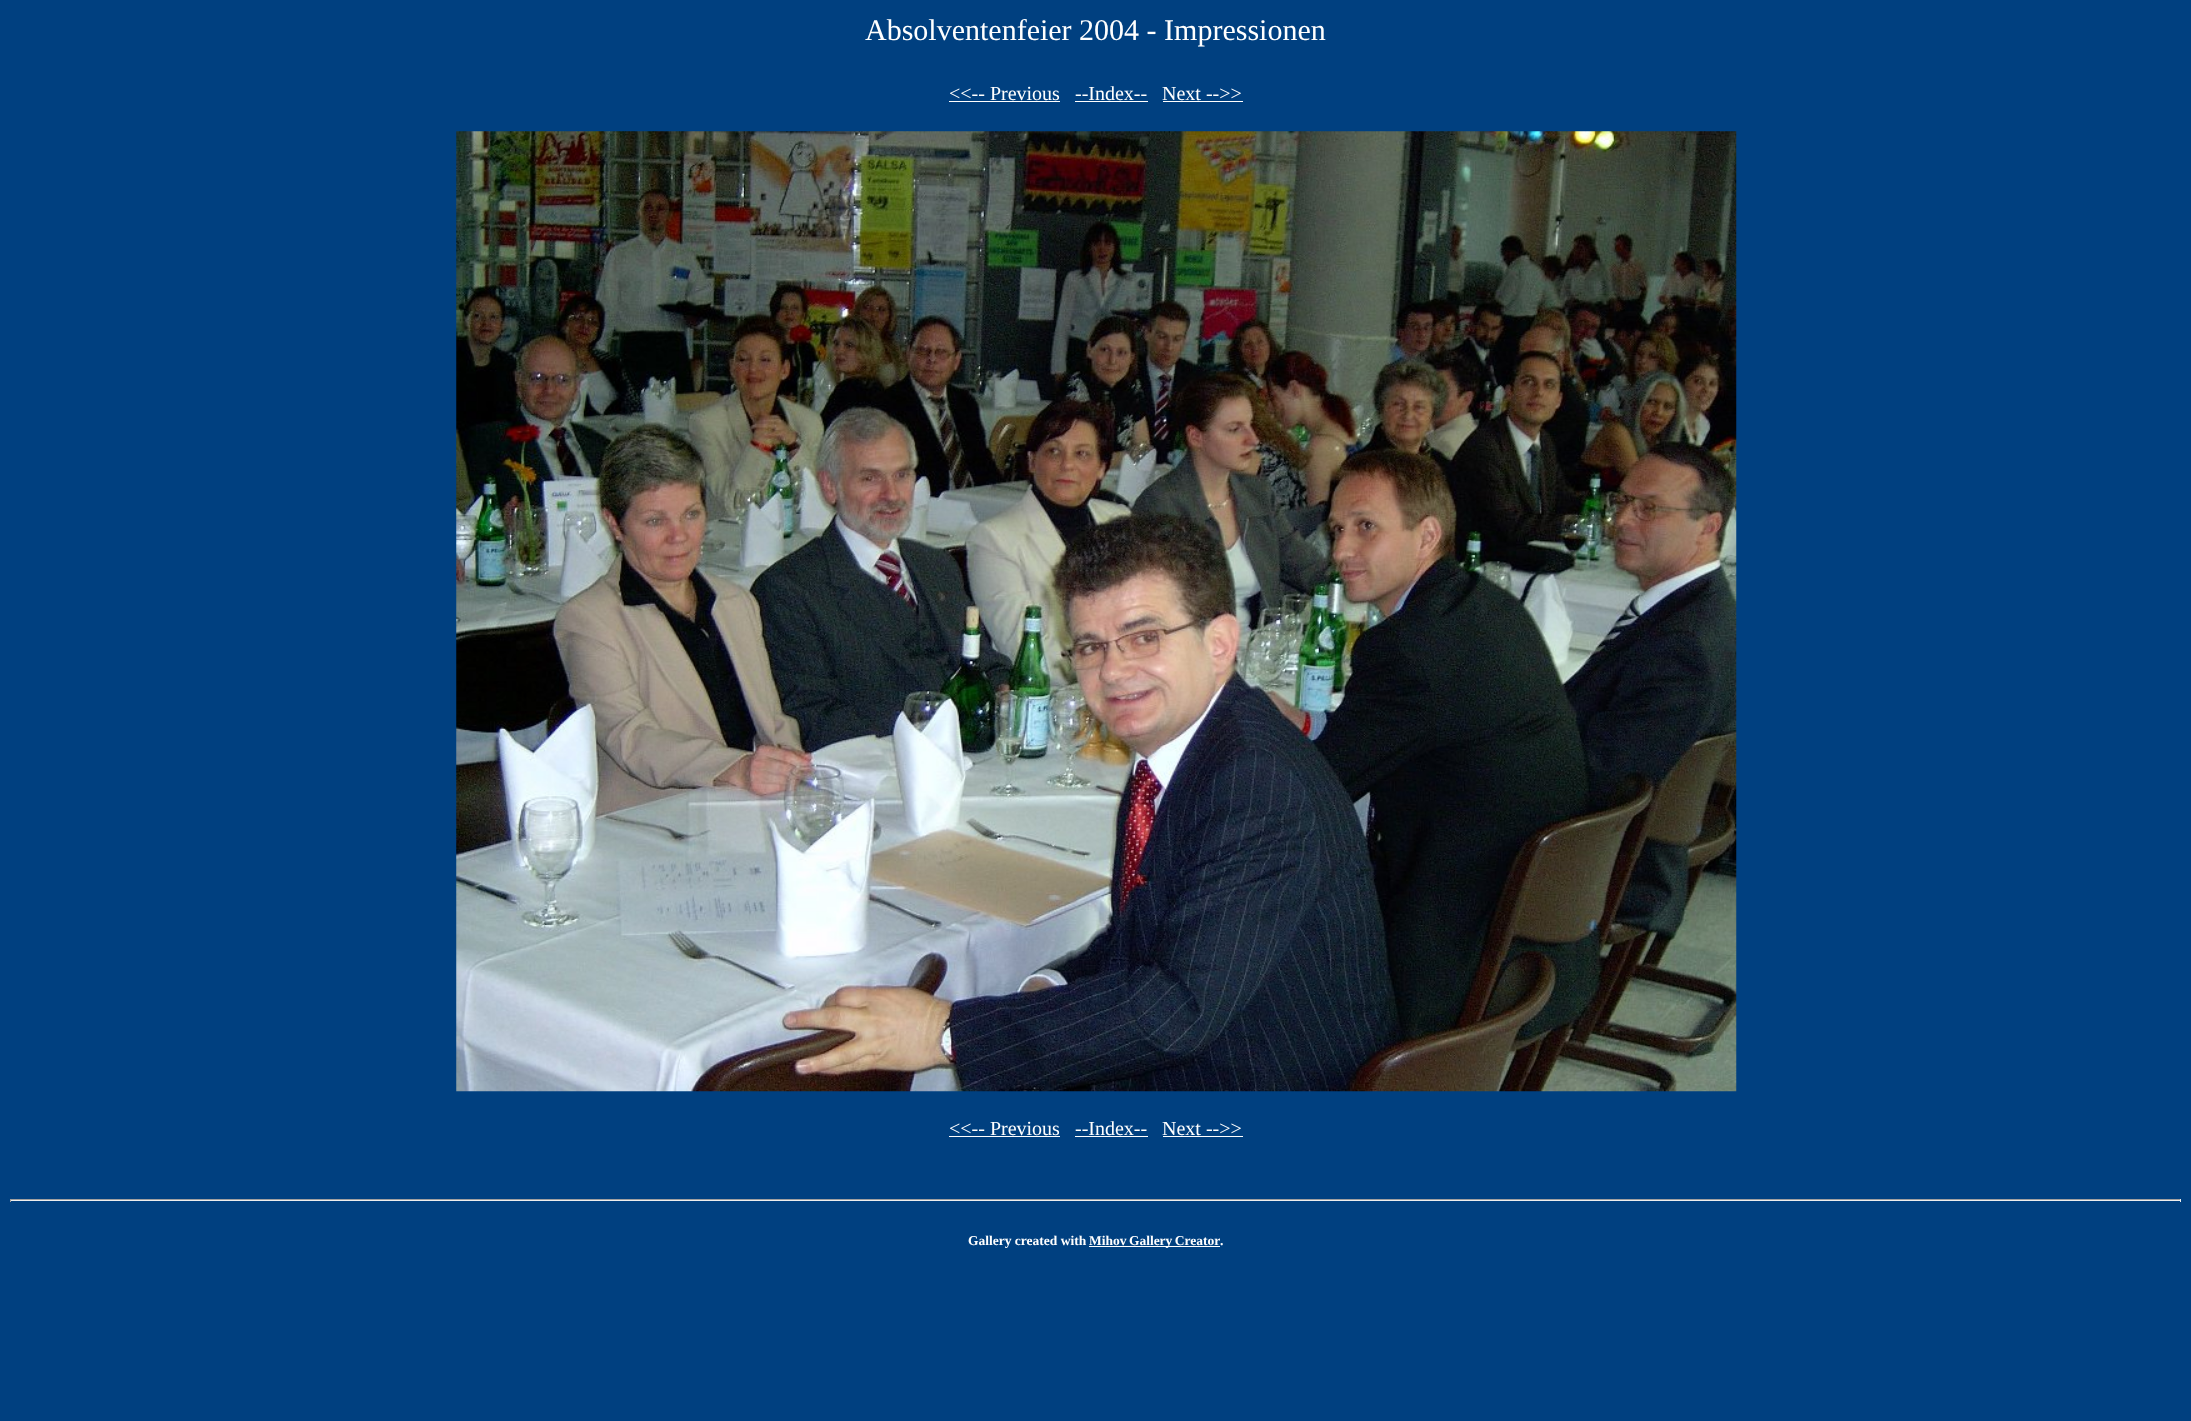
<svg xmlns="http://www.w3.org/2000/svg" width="2191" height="1421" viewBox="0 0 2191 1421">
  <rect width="100%" height="100%" fill="#004080"/>
  <text x="865" y="40" font-family="Liberation Serif" font-size="30" fill="#ffffff">Absolventenfeier 2004 - Impressionen</text>
  <text x="949" y="100" font-family="Liberation Serif" font-size="20" fill="#ffffff">&lt;&lt;-- Previous</text>
  <rect x="949" y="101" width="111" height="1" fill="#ffffff"/>
  <text x="1075" y="100" font-family="Liberation Serif" font-size="20" fill="#ffffff">--Index--</text>
  <rect x="1075" y="101" width="73" height="1" fill="#ffffff"/>
  <text x="1162" y="100" font-family="Liberation Serif" font-size="20" fill="#ffffff">Next --&gt;&gt;</text>
  <rect x="1163" y="101" width="80" height="1" fill="#ffffff"/>
  <image x="456" y="131" width="1281" height="961" href="img1.png"/>
  <text x="949" y="1135" font-family="Liberation Serif" font-size="20" fill="#ffffff">&lt;&lt;-- Previous</text>
  <rect x="949" y="1136" width="111" height="1" fill="#ffffff"/>
  <text x="1075" y="1135" font-family="Liberation Serif" font-size="20" fill="#ffffff">--Index--</text>
  <rect x="1075" y="1136" width="73" height="1" fill="#ffffff"/>
  <text x="1162" y="1135" font-family="Liberation Serif" font-size="20" fill="#ffffff">Next --&gt;&gt;</text>
  <rect x="1163" y="1136" width="80" height="1" fill="#ffffff"/>
  <rect x="10" y="1199" width="2171" height="1" fill="#9f9f9f"/>
  <rect x="2180" y="1199" width="1" height="3" fill="#eeeeee"/>
  <rect x="10" y="1200" width="2171" height="1" fill="#eeeeee"/>
  <rect x="10" y="1199" width="1" height="3" fill="#9f9f9f"/>
  <text x="968" y="1245" font-family="Liberation Serif" font-size="13.5" font-weight="bold" fill="#ffffff">Gallery created with</text>
  <rect x="1089" y="1246" width="131" height="1" fill="#ffffff"/>
  <text x="1089" y="1245" word-spacing="-1" font-family="Liberation Serif" font-size="13.5" font-weight="bold" fill="#ffffff">Mihov Gallery Creator</text>
  <text x="1220" y="1245" font-family="Liberation Serif" font-size="13.5" font-weight="bold" fill="#ffffff">.</text>
</svg>
